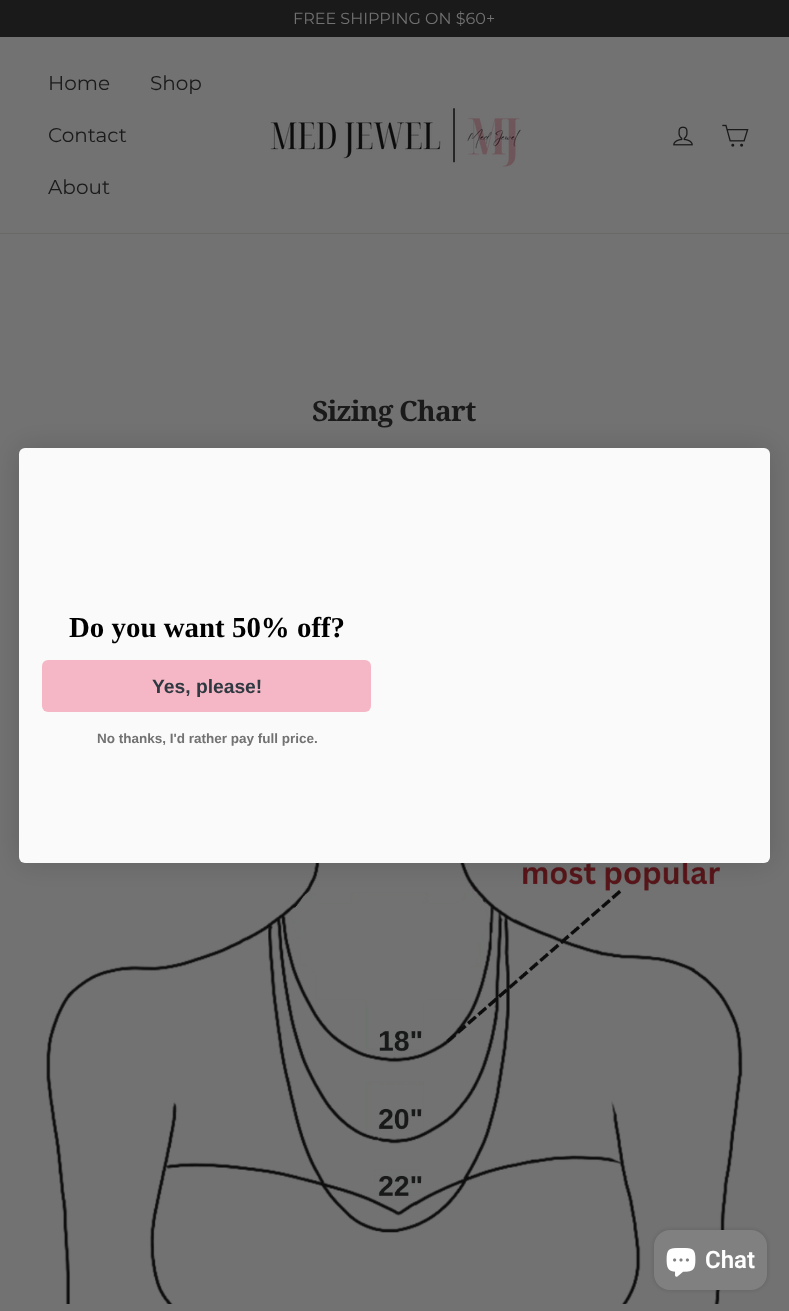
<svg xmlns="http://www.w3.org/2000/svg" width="789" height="1311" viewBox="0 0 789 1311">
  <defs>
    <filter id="blur1" x="-50%" y="-200%" width="200%" height="500%"><feGaussianBlur stdDeviation="14.5"/></filter>
    <filter id="blur2" x="-50%" y="-200%" width="200%" height="500%"><feGaussianBlur stdDeviation="2.5"/></filter>
  </defs>
  <rect width="100%" height="100%" fill="#727272"/>
  <rect x="0" y="0" width="789" height="37" fill="#1a1a1a"/>
  <text x="293" y="24" font-family="Montserrat" font-size="16" font-weight="100" fill="#727272">FREE SHIPPING ON $60+</text>
  <rect x="0" y="233" width="789" height="1" fill="#696966"/>
  <text x="48" y="90" font-family="Montserrat" font-size="20" font-weight="100" fill="#1a1a1a">Home</text>
  <text x="150" y="90" font-family="Montserrat" font-size="20" font-weight="100" fill="#1a1a1a">Shop</text>
  <text x="48" y="142" font-family="Montserrat" font-size="20" font-weight="100" fill="#1a1a1a">Contact</text>
  <text x="48" y="194" font-family="Montserrat" font-size="20" font-weight="100" fill="#1a1a1a">About</text>
  <image x="270" y="108" width="251" height="59" href="img1.png"/>
  <image x="673" y="126" width="20" height="20" href="img2.png"/>
  <image x="722" y="124" width="27" height="23" href="img3.png"/>
  <text x="312" y="421" font-family="Noto Serif" font-size="28" font-weight="bold" letter-spacing="-0.75" fill="#1a1a1a">Sizing Chart</text>
  <image x="46" y="863" width="697" height="441" href="img4.png"/>
  <rect x="19" y="448" width="751" height="415" rx="6" fill="#000000" fill-opacity="0.15" filter="url(#blur1)"/>
  <rect x="19" y="448" width="751" height="415" rx="6" fill="#fafafa"/>
  <text x="69" y="637" font-family="Liberation Serif" font-size="28.9" font-weight="bold" fill="#000000">Do you want 50% off?</text>
  <rect x="42" y="660" width="329" height="52" rx="6" fill="#f5b7c5"/>
  <text x="152" y="693" font-family="Liberation Sans" font-size="19.25" font-weight="bold" fill="#2f3941">Yes, please!</text>
  <text x="97" y="743" font-family="Liberation Sans" font-size="13.5" font-weight="bold" fill="#727272">No thanks, I'd rather pay full price.</text>
  <rect x="654" y="1230" width="113" height="60" rx="16" fill="#000000" fill-opacity="0.15" filter="url(#blur2)"/>
  <rect x="654" y="1230" width="113" height="60" rx="16" fill="#808080"/>
  <image x="666" y="1248" width="30" height="29" href="img5.png"/>
  <text x="705" y="1268" font-family="Roboto" font-size="24" font-weight="600" fill="#ffffff">Chat</text>
</svg>
